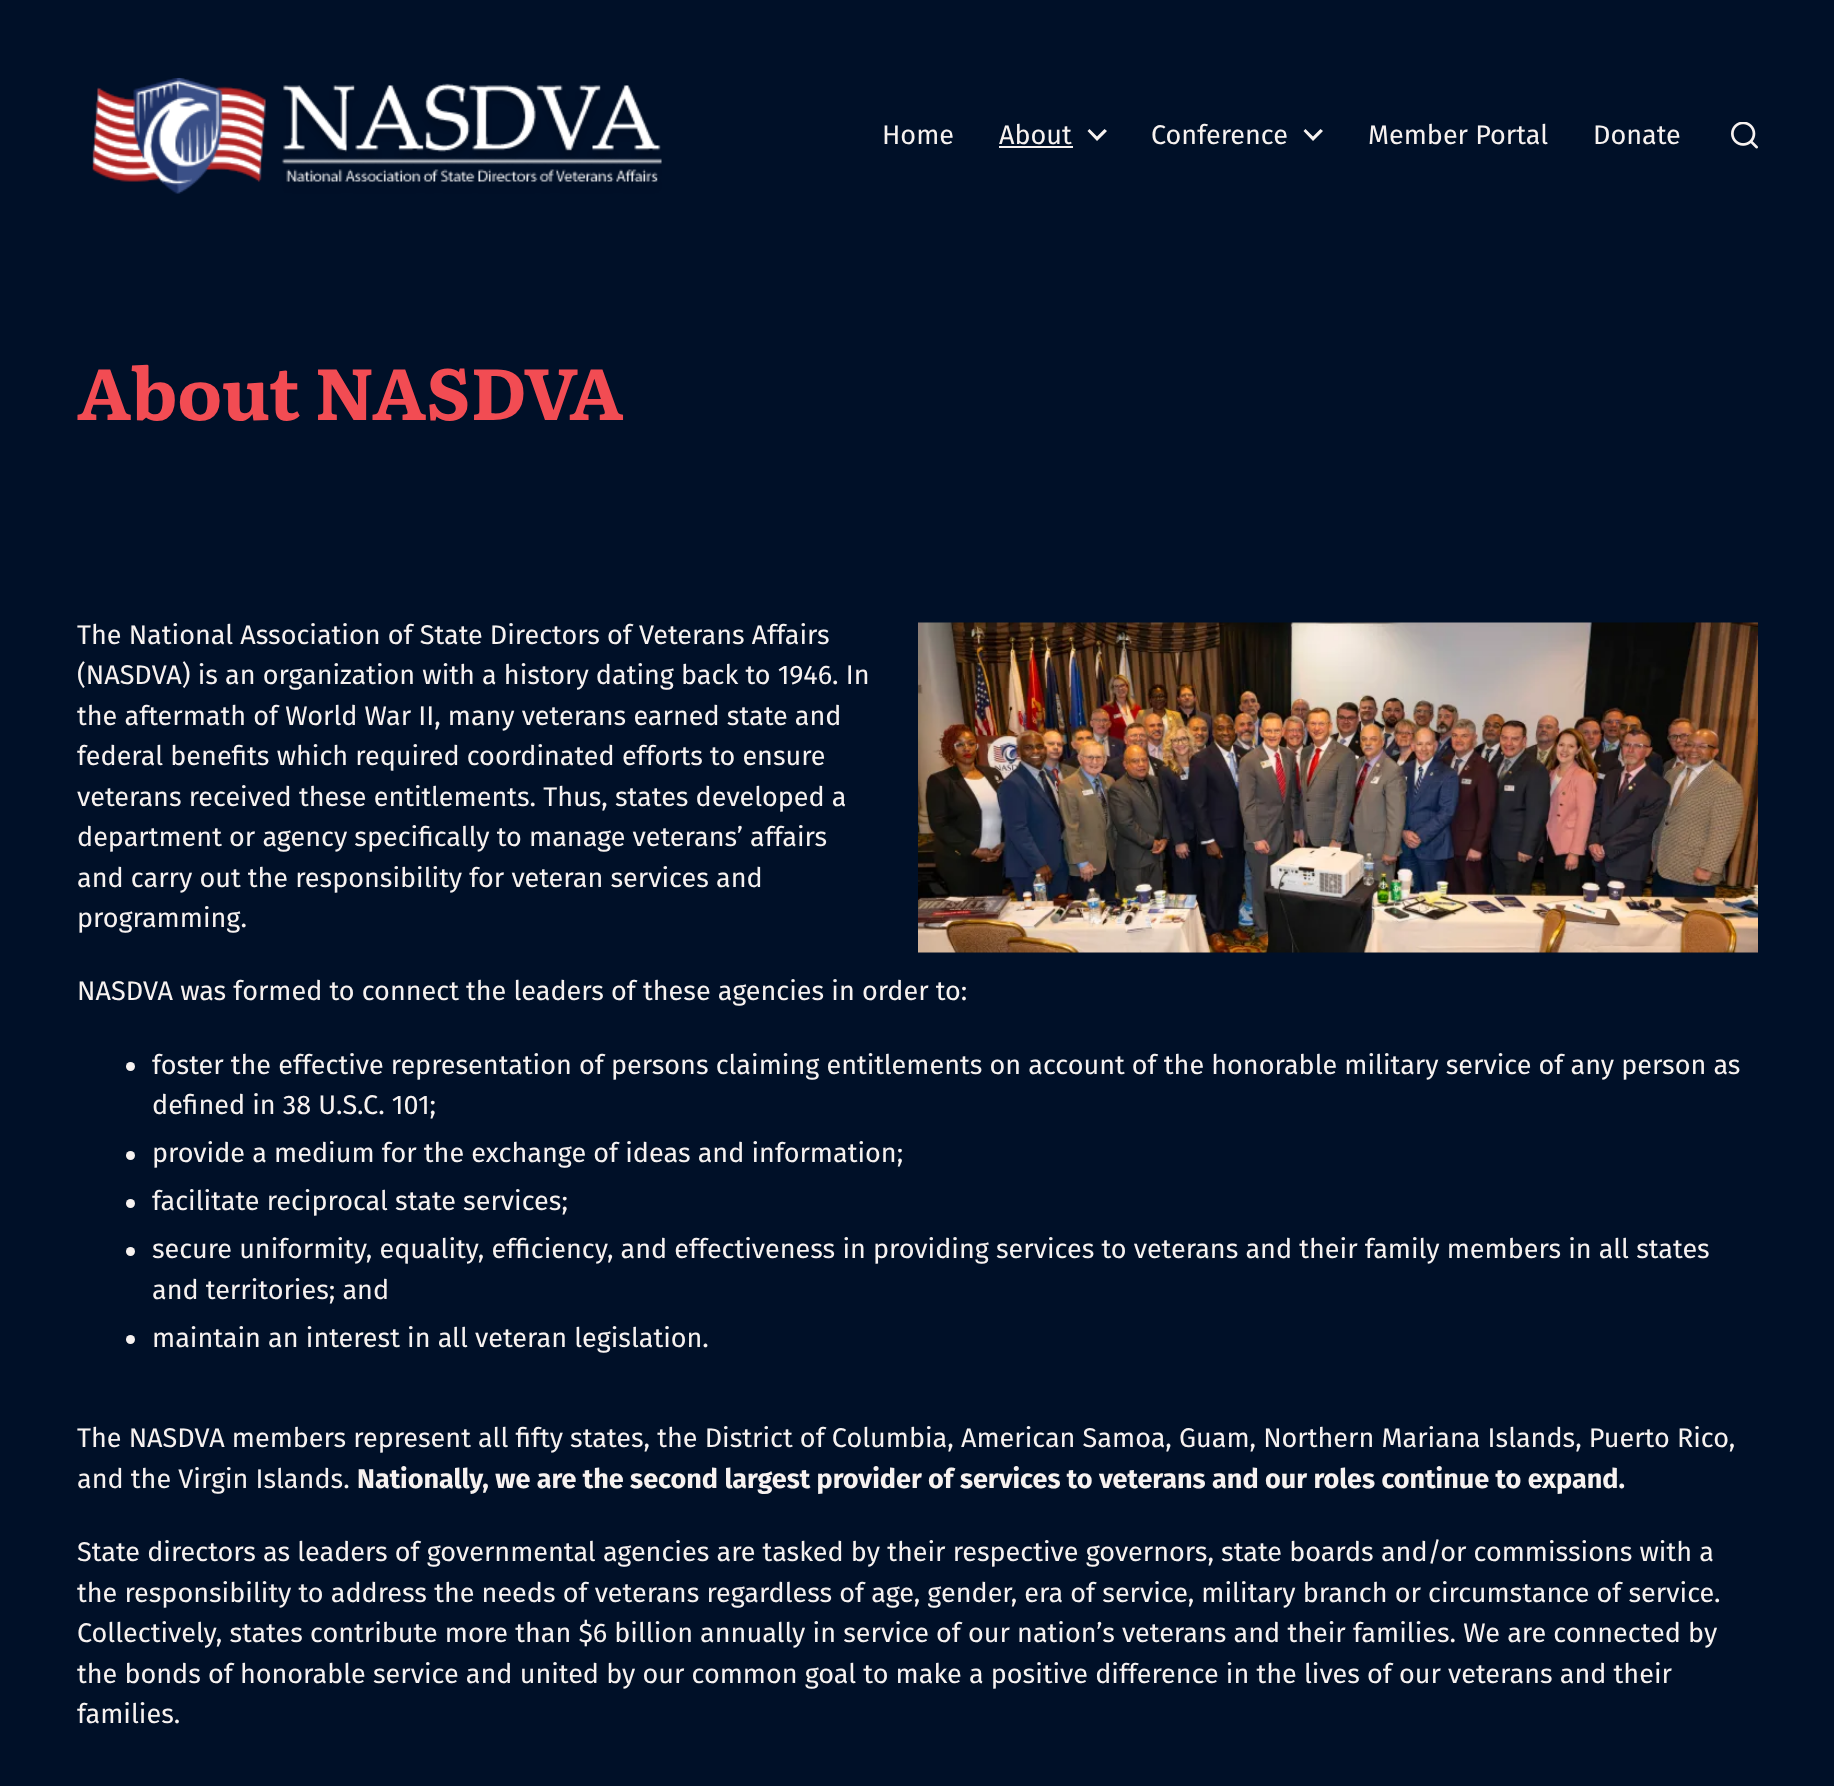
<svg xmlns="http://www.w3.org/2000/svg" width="1834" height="1786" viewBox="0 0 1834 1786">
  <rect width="100%" height="100%" fill="#001028"/>
  <image x="92" y="78" width="570" height="116" href="img1.png"/>
  <text x="882" y="144" font-family="Fira Sans" font-size="27" fill="#f7f2f0">Home</text>
  <text x="999" y="144" font-family="Fira Sans" font-size="27" fill="#f7f2f0">About</text>
  <rect x="999" y="146" width="74" height="2" fill="#f7f2f0"/>
  <path d="M1097 136.5L1104.5 129L1107 131L1097 141L1087.5 131L1089.5 129Z" fill="#f7f2f0" fill-rule="evenodd"/>
  <text x="1151" y="144" font-family="Fira Sans" font-size="27" fill="#f7f2f0">Conference</text>
  <path d="M1313 136.5L1320.5 129L1323 131L1313 141L1303.5 131L1305.5 129Z" fill="#f7f2f0" fill-rule="evenodd"/>
  <text x="1368" y="144" font-family="Fira Sans" font-size="27" fill="#f7f2f0">Member Portal</text>
  <text x="1593" y="144" font-family="Fira Sans" font-size="27" fill="#f7f2f0">Donate</text>
  <image x="1731" y="122" width="27" height="27" href="img2.png"/>
  <text x="77" y="420" font-family="Literata" font-size="72" font-weight="bold" fill="#f24c53">About NASDVA</text>
  <text x="77" y="644" font-family="Fira Sans" font-size="27" fill="#f7f2f0">The National Association of State Directors of Veterans Affairs</text>
  <text x="77" y="684" font-family="Fira Sans" font-size="27" fill="#f7f2f0">(NASDVA) is an organization with a history dating back to 1946. In</text>
  <text x="77" y="725" font-family="Fira Sans" font-size="27" fill="#f7f2f0">the aftermath of World War II, many veterans earned state and</text>
  <text x="77" y="765" font-family="Fira Sans" font-size="27" fill="#f7f2f0">federal benefits which required coordinated efforts to ensure</text>
  <text x="77" y="806" font-family="Fira Sans" font-size="27" fill="#f7f2f0">veterans received these entitlements. Thus, states developed a</text>
  <text x="77" y="846" font-family="Fira Sans" font-size="27" fill="#f7f2f0">department or agency specifically to manage veterans’ affairs</text>
  <text x="77" y="887" font-family="Fira Sans" font-size="27" fill="#f7f2f0">and carry out the responsibility for veteran services and</text>
  <text x="77" y="927" font-family="Fira Sans" font-size="27" fill="#f7f2f0">programming.</text>
  <image x="918" y="622" width="840" height="331" href="img3.png"/>
  <text x="77" y="1000" font-family="Fira Sans" font-size="27" fill="#f7f2f0">NASDVA was formed to connect the leaders of these agencies in order to:</text>
  <circle cx="130.5" cy="1066.5" r="4.5" fill="#f7f2f0"/>
  <text x="152" y="1074" font-family="Fira Sans" font-size="27" fill="#f7f2f0">foster the effective representation of persons claiming entitlements on account of the honorable military service of any person as</text>
  <text x="152" y="1114" font-family="Fira Sans" font-size="27" fill="#f7f2f0">defined in 38 U.S.C. 101;</text>
  <circle cx="130.5" cy="1155.5" r="4.5" fill="#f7f2f0"/>
  <text x="152" y="1162" font-family="Fira Sans" font-size="27" fill="#f7f2f0">provide a medium for the exchange of ideas and information;</text>
  <circle cx="130.5" cy="1203.5" r="4.5" fill="#f7f2f0"/>
  <text x="152" y="1210" font-family="Fira Sans" font-size="27" fill="#f7f2f0">facilitate reciprocal state services;</text>
  <circle cx="130.5" cy="1251.5" r="4.5" fill="#f7f2f0"/>
  <text x="152" y="1258" font-family="Fira Sans" font-size="27" fill="#f7f2f0">secure uniformity, equality, efficiency, and effectiveness in providing services to veterans and their family members in all states</text>
  <text x="152" y="1299" font-family="Fira Sans" font-size="27" fill="#f7f2f0">and territories; and</text>
  <circle cx="130.5" cy="1339.5" r="4.5" fill="#f7f2f0"/>
  <text x="152" y="1347" font-family="Fira Sans" font-size="27" fill="#f7f2f0">maintain an interest in all veteran legislation.</text>
  <text x="77" y="1447" font-family="Fira Sans" font-size="27" fill="#f7f2f0">The NASDVA members represent all fifty states, the District of Columbia, American Samoa, Guam, Northern Mariana Islands, Puerto Rico,</text>
  <text x="77" y="1488" font-family="Fira Sans" font-size="27" fill="#f7f2f0">and the Virgin Islands.</text>
  <text x="357" y="1488" font-family="Fira Sans" font-size="27" font-weight="bold" fill="#f7f2f0">Nationally, we are the second largest provider of services to veterans and our roles continue to expand.</text>
  <text x="77" y="1561" font-family="Fira Sans" font-size="27" fill="#f7f2f0">State directors as leaders of governmental agencies are tasked by their respective governors, state boards and/or commissions with a</text>
  <text x="77" y="1602" font-family="Fira Sans" font-size="27" fill="#f7f2f0">the responsibility to address the needs of veterans regardless of age, gender, era of service, military branch or circumstance of service.</text>
  <text x="77" y="1642" font-family="Fira Sans" font-size="27" fill="#f7f2f0">Collectively, states contribute more than $6 billion annually in service of our nation’s veterans and their families. We are connected by</text>
  <text x="77" y="1683" font-family="Fira Sans" font-size="27" fill="#f7f2f0">the bonds of honorable service and united by our common goal to make a positive difference in the lives of our veterans and their</text>
  <text x="77" y="1723" font-family="Fira Sans" font-size="27" fill="#f7f2f0">families.</text>
</svg>
